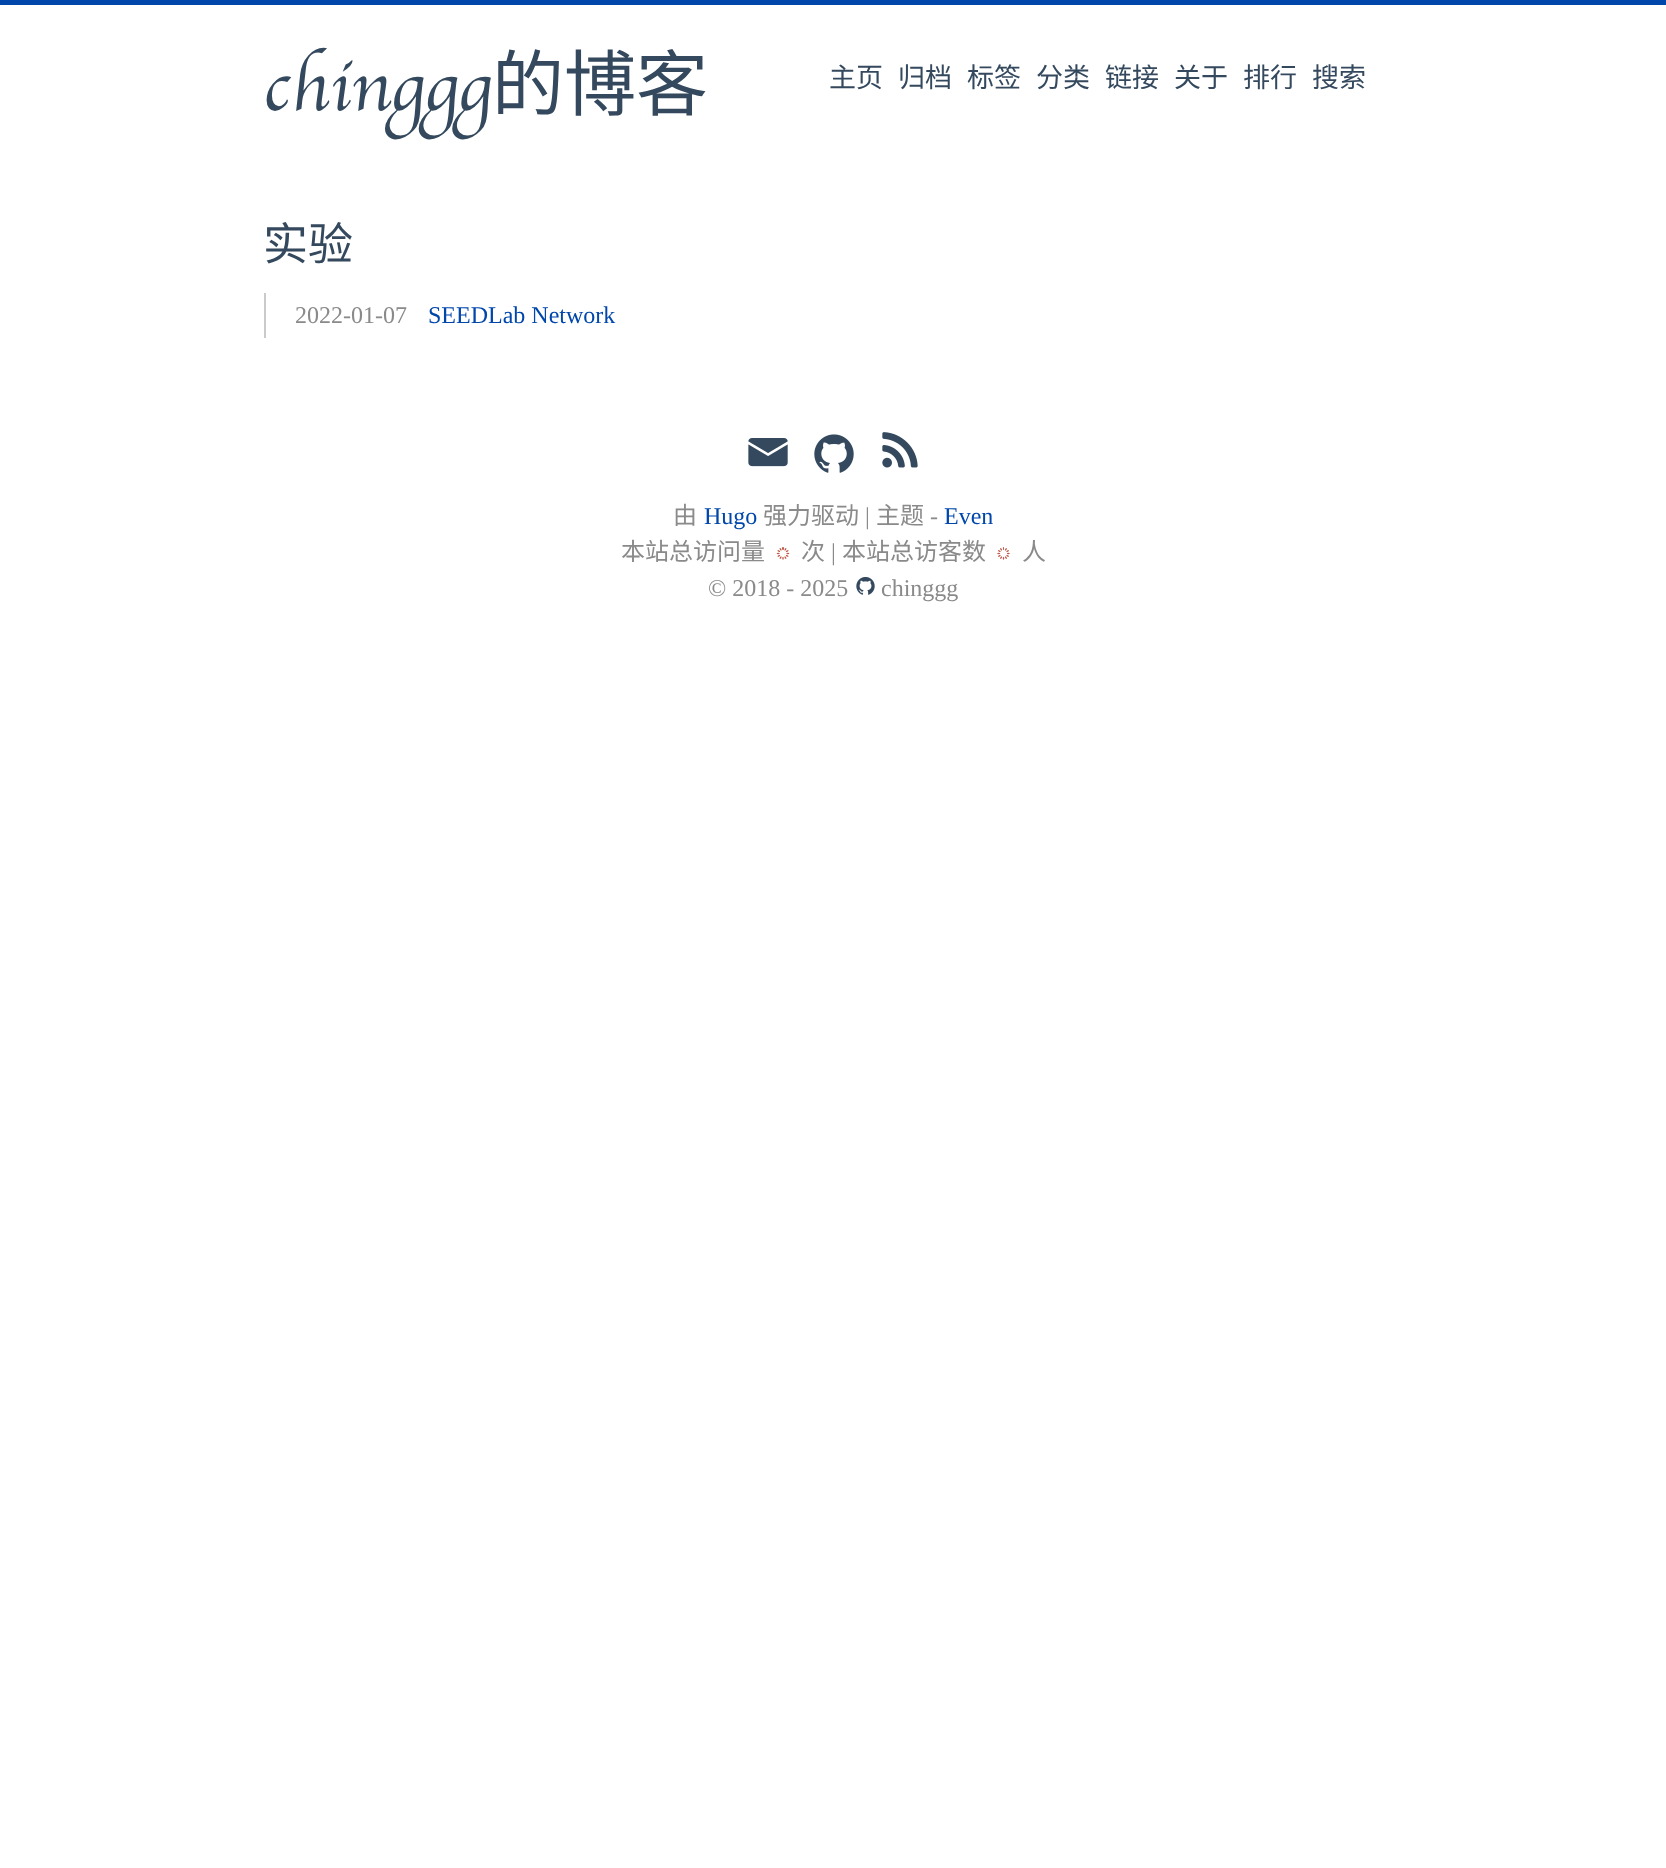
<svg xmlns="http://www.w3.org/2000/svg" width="1666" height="1868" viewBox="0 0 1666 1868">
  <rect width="100%" height="100%" fill="#ffffff"/>
  <rect x="0" y="0" width="1666" height="5" fill="#0047ab"/>
  <text x="263" y="110" font-family="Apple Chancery" font-size="72" font-weight="100" fill="#34495e">chinggg</text>
  <text x="492" y="110" font-family="Noto Sans CJK SC" font-size="72" fill="#34495e">的博客</text>
  <text x="829" y="87" font-family="Noto Sans CJK SC" font-size="27" fill="#34495e">主页</text>
  <text x="898" y="87" font-family="Noto Sans CJK SC" font-size="27" fill="#34495e">归档</text>
  <text x="967" y="87" font-family="Noto Sans CJK SC" font-size="27" fill="#34495e">标签</text>
  <text x="1036" y="87" font-family="Noto Sans CJK SC" font-size="27" fill="#34495e">分类</text>
  <text x="1105" y="87" font-family="Noto Sans CJK SC" font-size="27" fill="#34495e">链接</text>
  <text x="1174" y="87" font-family="Noto Sans CJK SC" font-size="27" fill="#34495e">关于</text>
  <text x="1243" y="87" font-family="Noto Sans CJK SC" font-size="27" fill="#34495e">排行</text>
  <text x="1312" y="87" font-family="Noto Sans CJK SC" font-size="27" fill="#34495e">搜索</text>
  <text x="263" y="260" font-family="Noto Sans CJK SC" font-size="45" fill="#34495e">实验</text>
  <rect x="264" y="293" width="2" height="45" fill="#cacaca"/>
  <text x="295" y="323" font-family="Liberation Serif" font-size="24" fill="#8a8a8a">2022-01-07</text>
  <text x="428" y="323" font-family="Liberation Serif" font-size="24" fill="#0047ab">SEEDLab Network</text>
  <image x="748" y="438" width="40" height="29" href="img1.png"/>
  <image x="814" y="434" width="40" height="39" href="img2.png"/>
  <image x="882" y="432" width="36" height="36" href="img3.png"/>
  <text x="673" y="524" font-family="Noto Sans CJK SC" font-size="24" fill="#8a8a8a">由</text>
  <text x="704" y="524" font-family="Liberation Serif" font-size="24" fill="#0047ab">Hugo</text>
  <text x="763" y="524" font-family="Noto Sans CJK SC" font-size="24" fill="#8a8a8a">强力驱动</text>
  <text x="865" y="524" font-family="Liberation Serif" font-size="24" fill="#8a8a8a">|</text>
  <text x="876" y="524" font-family="Noto Sans CJK SC" font-size="24" fill="#8a8a8a">主题</text>
  <text x="930" y="524" font-family="Liberation Serif" font-size="24" fill="#8a8a8a">-</text>
  <text x="944" y="524" font-family="Liberation Serif" font-size="24" fill="#0047ab">Even</text>
  <text x="621" y="560" font-family="Noto Sans CJK SC" font-size="24" fill="#8a8a8a">本站总访问量</text>
  <image x="776" y="547" width="14" height="13" href="img4.png"/>
  <text x="801" y="560" font-family="Noto Sans CJK SC" font-size="24" fill="#8a8a8a">次</text>
  <text x="831" y="560" font-family="Liberation Serif" font-size="24" fill="#8a8a8a">|</text>
  <text x="842" y="560" font-family="Noto Sans CJK SC" font-size="24" fill="#8a8a8a">本站总访客数</text>
  <image x="997" y="547" width="13" height="13" href="img5.png"/>
  <text x="1022" y="560" font-family="Noto Sans CJK SC" font-size="24" fill="#8a8a8a">人</text>
  <text x="708" y="596" font-family="Liberation Serif" font-size="24" fill="#8a8a8a">© 2018 - 2025</text>
  <image x="856" y="576" width="19" height="19" href="img6.png"/>
  <text x="881" y="596" font-family="Liberation Serif" font-size="24" fill="#8a8a8a">chinggg</text>
</svg>
